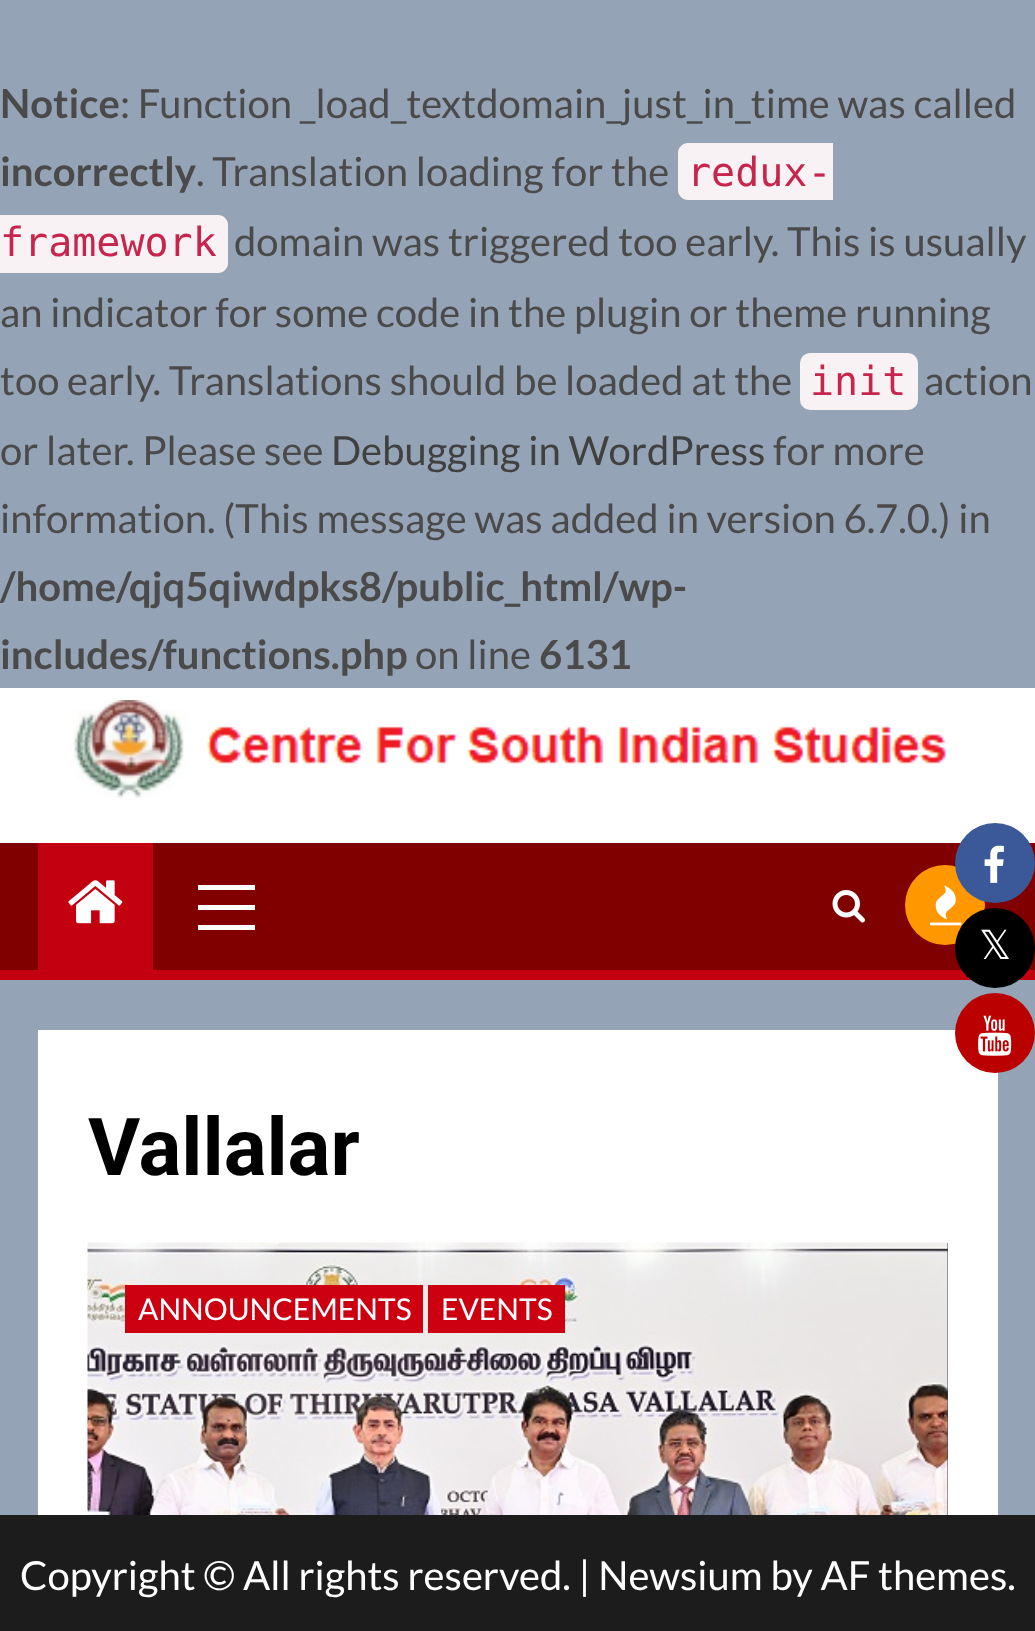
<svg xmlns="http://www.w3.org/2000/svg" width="1035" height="1631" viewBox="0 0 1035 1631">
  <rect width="100%" height="100%" fill="#94a3b5"/>
  <text x="0" y="118" font-family="Lato" font-size="40" font-weight="bold" fill="#4a4a4a">Notice</text>
  <text x="120" y="118" font-family="Lato" font-size="40" fill="#4a4a4a">: Function _load_textdomain_just_in_time was called</text>
  <text x="0" y="186" font-family="Lato" font-size="40" font-weight="bold" fill="#4a4a4a">incorrectly</text>
  <text x="196" y="186" font-family="Lato" font-size="40" fill="#4a4a4a">. Translation loading for the</text>
  <path d="M688 143H833V200H688C682.5 200 678 195.5 678 190V153C678 147.5 682.5 143 688 143Z" fill="#f9f2f4"/>
  <text x="687" y="186" font-family="DejaVu Sans Mono" font-size="40" fill="#c7254e">redux-</text>
  <path d="M0 215H218C223.5 215 228 219.5 228 225V263C228 268.5 223.5 273 218 273H0Z" fill="#f9f2f4"/>
  <text x="0" y="256" font-family="DejaVu Sans Mono" font-size="40" fill="#c7254e">framework</text>
  <text x="234" y="256" font-family="Lato" font-size="40" fill="#4a4a4a">domain was triggered too early. This is usually</text>
  <text x="0" y="327" font-family="Lato" font-size="40" fill="#4a4a4a">an indicator for some code in the plugin or theme running</text>
  <text x="0" y="395" font-family="Lato" font-size="40" fill="#4a4a4a">too early. Translations should be loaded at the</text>
  <rect x="800" y="353" width="118" height="57" rx="10" fill="#f9f2f4"/>
  <text x="810" y="395" font-family="DejaVu Sans Mono" font-size="40" fill="#c7254e">init</text>
  <text x="924" y="395" font-family="Lato" font-size="40" fill="#4a4a4a">action</text>
  <text x="0" y="465" font-family="Lato" font-size="40" fill="#4a4a4a">or later. Please see</text>
  <text x="331" y="465" font-family="Lato" font-size="40" fill="#404040">Debugging in WordPress</text>
  <text x="773" y="465" font-family="Lato" font-size="40" fill="#4a4a4a">for more</text>
  <text x="0" y="533" font-family="Lato" font-size="40" fill="#4a4a4a">information. (This message was added in version 6.7.0.) in</text>
  <text x="0" y="601" font-family="Lato" font-size="40" font-weight="bold" fill="#4a4a4a">/home/qjq5qiwdpks8/public_html/wp-</text>
  <text x="0" y="669" font-family="Lato" font-size="40" font-weight="bold" fill="#4a4a4a">includes/functions.php</text>
  <text x="415" y="669" font-family="Lato" font-size="40" fill="#4a4a4a">on line</text>
  <text x="539" y="669" font-family="Lato" font-size="40" font-weight="bold" fill="#4a4a4a">6131</text>
  <rect x="0" y="688" width="1035" height="155" fill="#ffffff"/>
  <rect x="0" y="843" width="1035" height="127" fill="#800000"/>
  <circle cx="945" cy="905" r="40" fill="#ff9800"/>
  <image x="930" y="885" width="32" height="41" href="img6.png"/>
  <circle cx="995" cy="863" r="40" fill="#3b5998"/>
  <image x="984" y="845" width="20" height="38" href="img1.png"/>
  <rect x="0" y="970" width="1035" height="10" fill="#c30010"/>
  <circle cx="995" cy="948" r="40" fill="#000000"/>
  <text x="979" y="959" font-family="DejaVu Sans" font-size="40" fill="#ffffff">𝕏</text>
  <rect x="38" y="1030" width="960" height="485" fill="#ffffff"/>
  <circle cx="995" cy="1033" r="40" fill="#bb0000"/>
  <image x="978" y="1015" width="34" height="41" href="img2.png"/>
  <image x="73" y="700" width="874" height="98" href="img3.png"/>
  <rect x="38" y="843" width="115" height="127" fill="#c30010"/>
  <image x="68" y="880" width="55" height="44" href="img4.png"/>
  <rect x="198" y="905" width="57" height="5" fill="#ffffff"/>
  <rect x="198" y="885" width="57" height="5" fill="#ffffff"/>
  <rect x="198" y="925" width="57" height="5" fill="#ffffff"/>
  <image x="832" y="890" width="33" height="33" href="img5.png"/>
  <text x="88" y="1175" font-family="Roboto" font-size="80" font-weight="bold" fill="#000000">Vallalar</text>
  <rect x="947" y="1243" width="1" height="272" fill="#404040"/>
  <image x="87" y="1242" width="861" height="273" href="img7.png"/>
  <rect x="125" y="1285" width="298" height="48" fill="#cc0010"/>
  <text x="138" y="1320" font-family="Lato" font-size="30" fill="#ffffff">ANNOUNCEMENTS</text>
  <rect x="428" y="1285" width="137" height="48" fill="#cc0010"/>
  <text x="441" y="1320" font-family="Lato" font-size="30" fill="#ffffff">EVENTS</text>
  <rect x="0" y="1515" width="1035" height="116" fill="#1c1c1c"/>
  <text x="20" y="1590" font-family="Lato" font-size="40" fill="#ffffff">Copyright © All rights reserved. | Newsium by AF themes.</text>
</svg>
